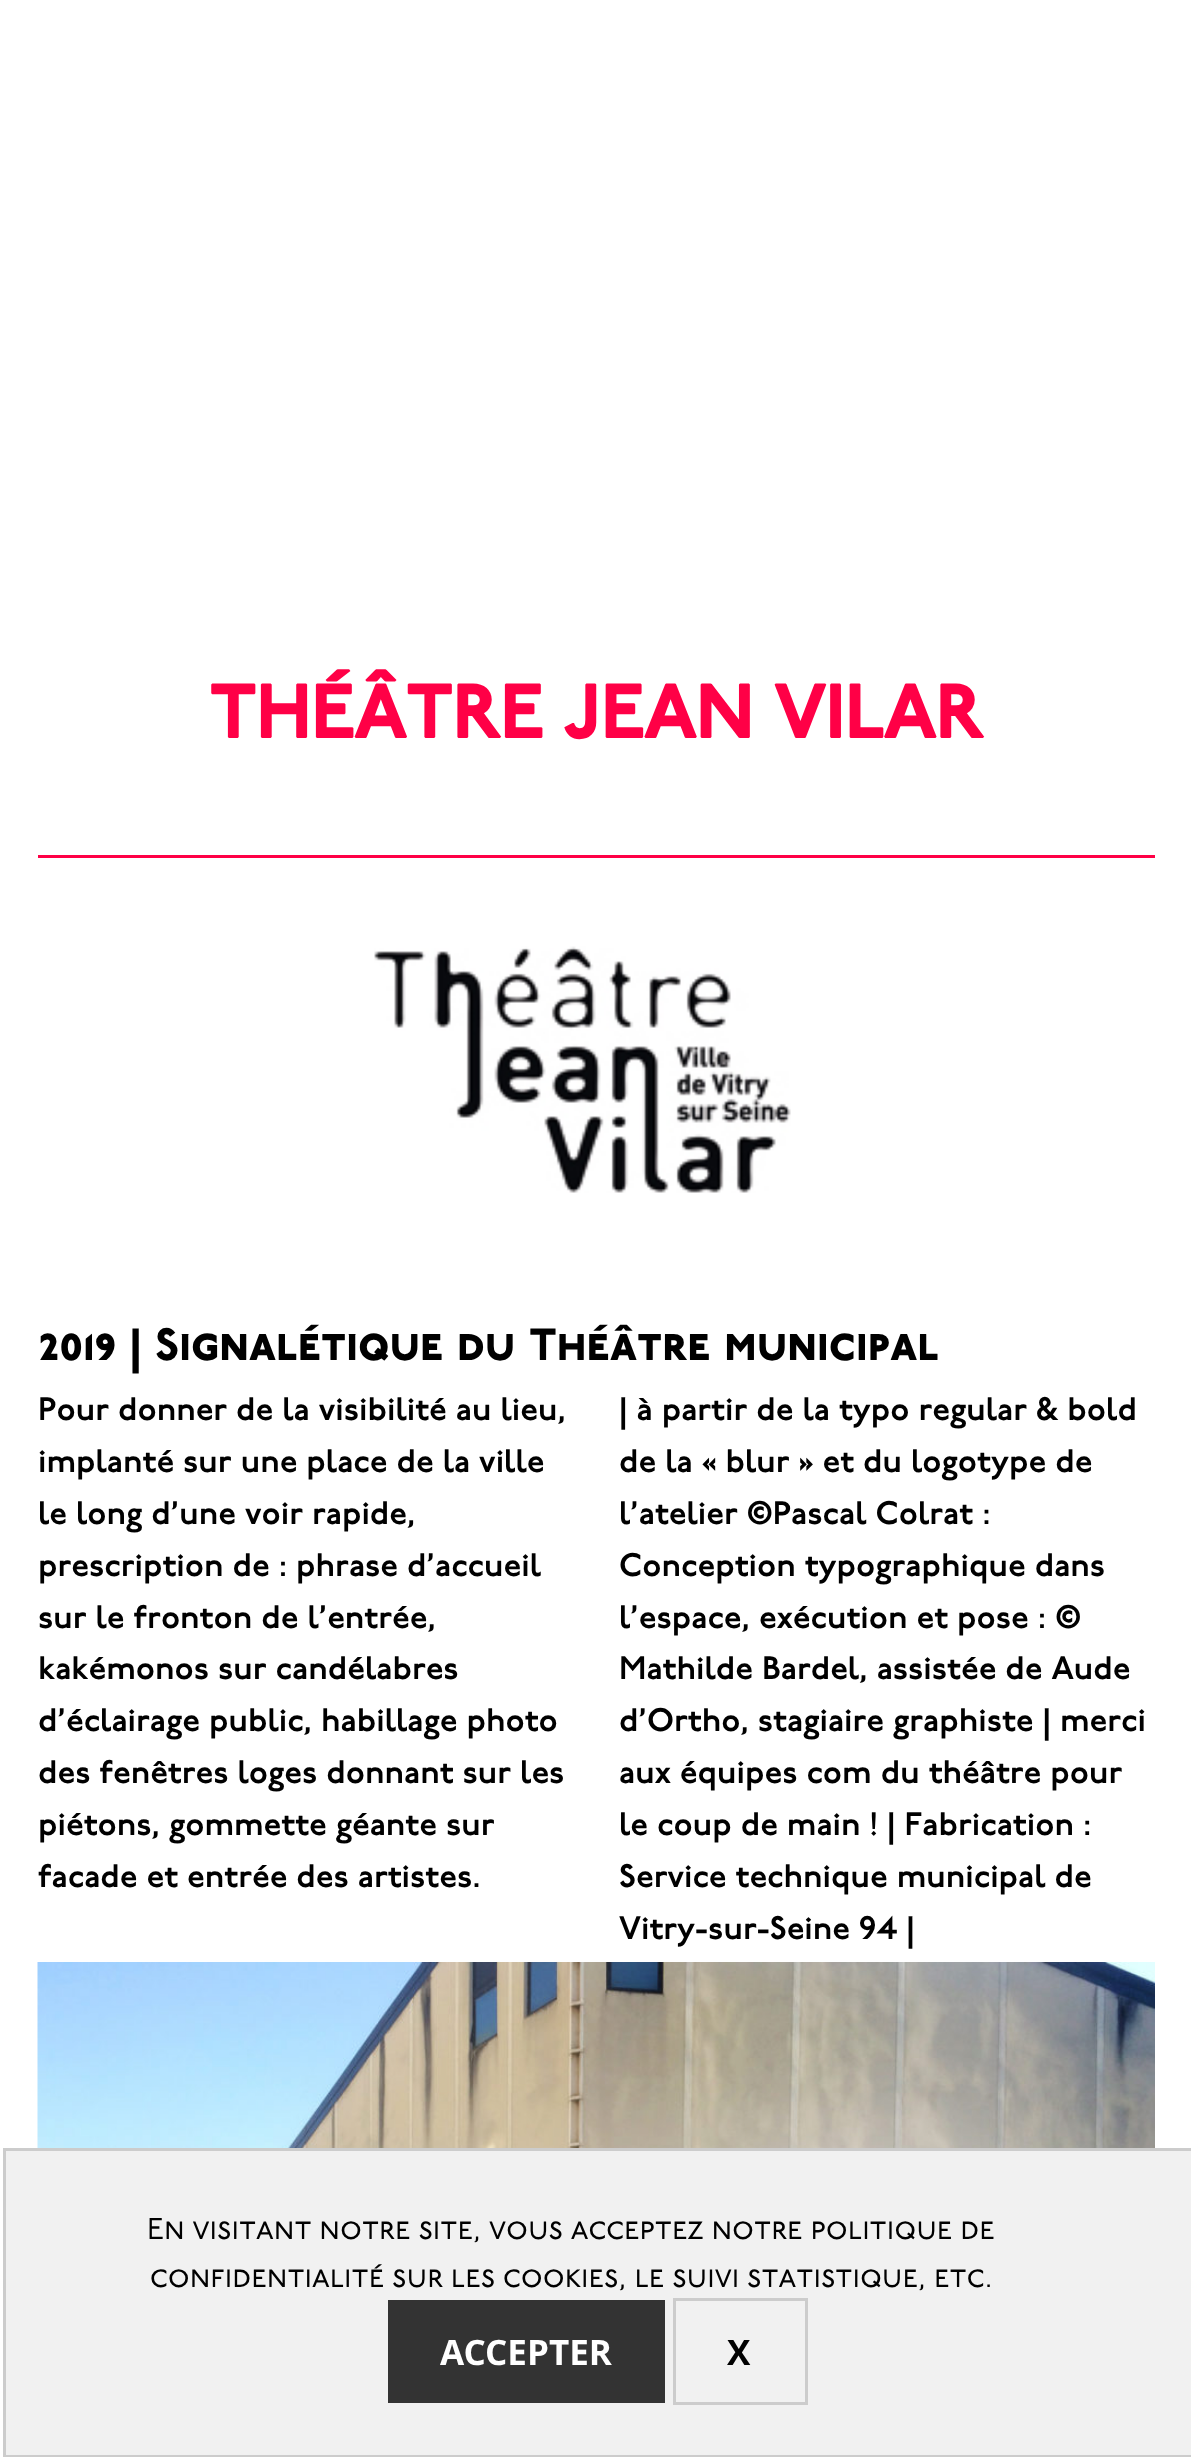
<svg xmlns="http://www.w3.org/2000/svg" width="1191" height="2457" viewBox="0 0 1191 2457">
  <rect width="100%" height="100%" fill="#ffffff"/>
  <text x="209" y="738" font-family="'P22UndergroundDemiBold'" font-size="75" font-weight="bold" fill="#ff0046">THÉÂTRE JEAN VILAR</text>
  <rect x="38" y="855" width="1117" height="3" fill="#ff0046"/>
  <image x="374" y="946" width="417" height="247" href="img1.png"/>
  <text x="38" y="1360" font-family="'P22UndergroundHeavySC'" font-size="45" fill="#000000">2019 | Signalétique du Théâtre municipal</text>
  <text x="38" y="1420" font-family="'P22UndergroundDemiBold'" font-size="32.5" fill="#000000">Pour donner de la visibilité au lieu,</text>
  <text x="38" y="1472" font-family="'P22UndergroundDemiBold'" font-size="32.5" fill="#000000">implanté sur une place de la ville</text>
  <text x="38" y="1524" font-family="'P22UndergroundDemiBold'" font-size="32.5" fill="#000000">le long d’une voir rapide,</text>
  <text x="38" y="1576" font-family="'P22UndergroundDemiBold'" font-size="32.5" fill="#000000">prescription de : phrase d’accueil</text>
  <text x="38" y="1628" font-family="'P22UndergroundDemiBold'" font-size="32.5" fill="#000000">sur le fronton de l’entrée,</text>
  <text x="38" y="1679" font-family="'P22UndergroundDemiBold'" font-size="32.5" fill="#000000">kakémonos sur candélabres</text>
  <text x="38" y="1731" font-family="'P22UndergroundDemiBold'" font-size="32.5" fill="#000000">d’éclairage public, habillage photo</text>
  <text x="38" y="1783" font-family="'P22UndergroundDemiBold'" font-size="32.5" fill="#000000">des fenêtres loges donnant sur les</text>
  <text x="38" y="1835" font-family="'P22UndergroundDemiBold'" font-size="32.5" fill="#000000">piétons, gommette géante sur</text>
  <text x="38" y="1887" font-family="'P22UndergroundDemiBold'" font-size="32.5" fill="#000000">facade et entrée des artistes.</text>
  <text x="619" y="1420" font-family="'P22UndergroundDemiBold'" font-size="32.5" fill="#000000">| à partir de la typo regular &amp; bold</text>
  <text x="619" y="1472" font-family="'P22UndergroundDemiBold'" font-size="32.5" fill="#000000">de la « blur » et du logotype de</text>
  <text x="619" y="1524" font-family="'P22UndergroundDemiBold'" font-size="32.5" fill="#000000">l’atelier ©Pascal Colrat :</text>
  <text x="619" y="1576" font-family="'P22UndergroundDemiBold'" font-size="32.5" fill="#000000">Conception typographique dans</text>
  <text x="619" y="1628" font-family="'P22UndergroundDemiBold'" font-size="32.5" fill="#000000">l’espace, exécution et pose : ©</text>
  <text x="619" y="1679" font-family="'P22UndergroundDemiBold'" font-size="32.5" fill="#000000">Mathilde Bardel, assistée de Aude</text>
  <text x="619" y="1731" font-family="'P22UndergroundDemiBold'" font-size="32.5" fill="#000000">d’Ortho, stagiaire graphiste | merci</text>
  <text x="619" y="1783" font-family="'P22UndergroundDemiBold'" font-size="32.5" fill="#000000">aux équipes com du théâtre pour</text>
  <text x="619" y="1835" font-family="'P22UndergroundDemiBold'" font-size="32.5" fill="#000000">le coup de main ! | Fabrication :</text>
  <text x="619" y="1887" font-family="'P22UndergroundDemiBold'" font-size="32.5" fill="#000000">Service technique municipal de</text>
  <text x="619" y="1939" font-family="'P22UndergroundDemiBold'" font-size="32.5" fill="#000000">Vitry-sur-Seine 94 |</text>
  <image x="37" y="1962" width="1118" height="186" href="img2.png"/>
  <rect x="4.5" y="2149.5" width="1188" height="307" fill="#f1f1f1" stroke="#cccccc" stroke-width="3"/>
  <text x="147" y="2239" font-family="'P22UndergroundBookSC'" font-size="30" fill="#000000">En visitant notre site, vous acceptez notre politique de</text>
  <text x="150" y="2287" font-family="'P22UndergroundBookSC'" font-size="30" fill="#000000">confidentialité sur les cookies, le suivi statistique, etc.</text>
  <rect x="388" y="2300" width="277" height="103" fill="#333333"/>
  <text x="440" y="2365" font-family="Noto Sans" font-size="35" font-weight="bold" fill="#ffffff">ACCEPTER</text>
  <rect x="674.5" y="2299.5" width="132" height="104" fill="none" stroke="#cccccc" stroke-width="3"/>
  <text x="727" y="2365" font-family="Noto Sans" font-size="35" font-weight="bold" fill="#000000">X</text>
</svg>
